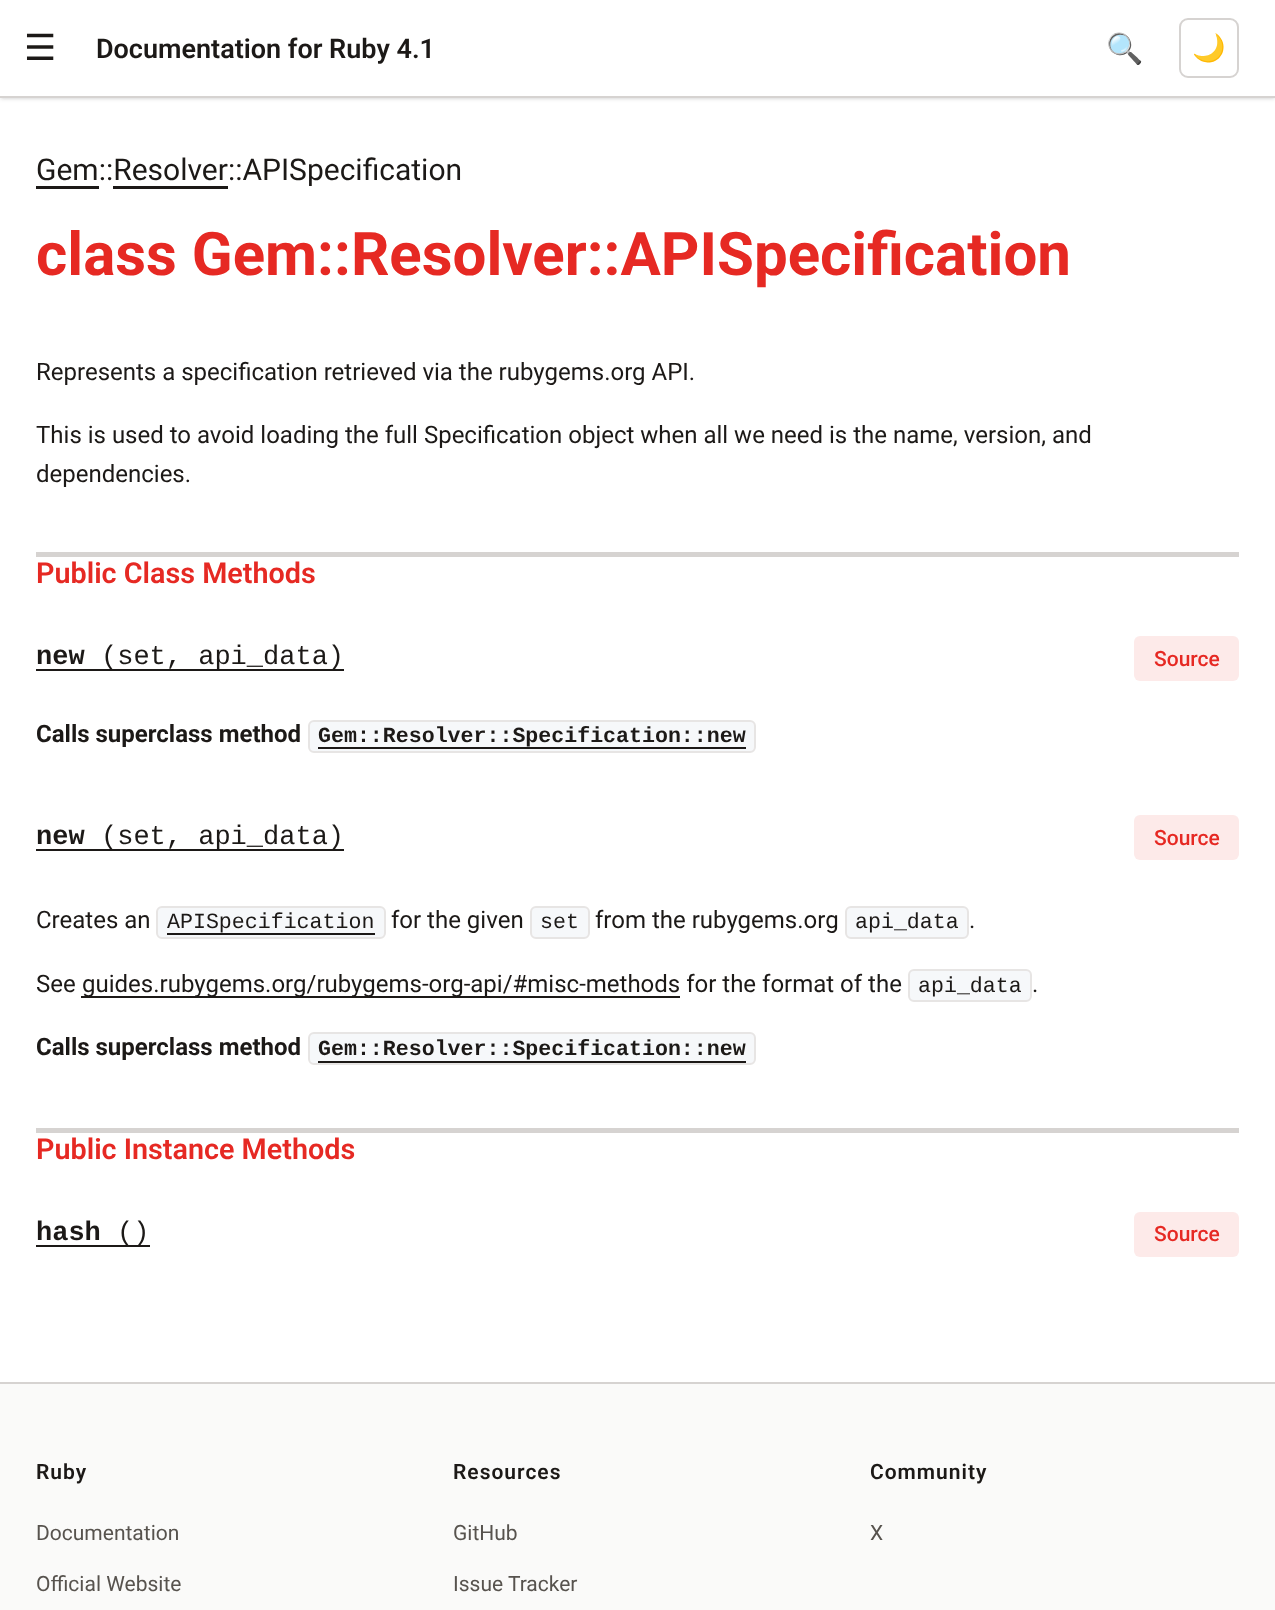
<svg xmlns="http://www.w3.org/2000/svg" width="1275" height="1610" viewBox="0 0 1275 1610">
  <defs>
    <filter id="blur1" x="-50%" y="-200%" width="200%" height="500%"><feGaussianBlur stdDeviation="1.5"/></filter>
    <filter id="blur2" x="-50%" y="-200%" width="200%" height="500%"><feGaussianBlur stdDeviation="2"/></filter>
  </defs>
  <rect width="100%" height="100%" fill="#ffffff"/>
  <rect x="2" y="3" width="1272" height="95" fill="#000000" fill-opacity="0.1" filter="url(#blur1)"/>
  <rect x="0" y="2" width="1275" height="97" fill="#000000" fill-opacity="0.1" filter="url(#blur2)"/>
  <rect x="0" y="0" width="1275" height="96" fill="#ffffff"/>
  <text x="24" y="60" font-family="DejaVu Sans" font-size="36" fill="#1c1917">☰</text>
  <rect x="0" y="96" width="1275" height="2" fill="#d6d3d1"/>
  <text x="96" y="58" font-family="Roboto" font-size="27" font-weight="600" fill="#1c1917">Documentation for Ruby 4.1</text>
  <text x="1106" y="59" font-family="Noto Color Emoji" font-size="30" fill="#1c1917">🔍</text>
  <rect x="1180" y="19" width="58" height="58" rx="8" fill="none" stroke="#d6d3d1" stroke-width="2"/>
  <text x="1192" y="57" font-family="Noto Color Emoji" font-size="27" fill="#1c1917">🌙</text>
  <rect x="36" y="186" width="63" height="3" fill="#1c1917"/>
  <text x="36" y="180" font-family="Roboto" font-size="30" fill="#1c1917">Gem::Resolver::APISpecification</text>
  <rect x="113" y="186" width="115" height="3" fill="#1c1917"/>
  <text x="36" y="275" font-family="Roboto" font-size="60" font-weight="bold" fill="#e62923">class Gem::Resolver::APISpecification</text>
  <text x="36" y="380" font-family="Roboto" font-size="24" fill="#1c1917">Represents a specification retrieved via the rubygems.org API.</text>
  <text x="36" y="443" font-family="Roboto" font-size="24" fill="#1c1917">This is used to avoid loading the full Specification object when all we need is the name, version, and</text>
  <text x="36" y="482" font-family="Roboto" font-size="24" fill="#1c1917">dependencies.</text>
  <rect x="36" y="552" width="1203" height="5" fill="#d6d3d1"/>
  <text x="36" y="583" font-family="Roboto" font-size="28.75" font-weight="600" fill="#e62923">Public Class Methods</text>
  <text x="36" y="664" font-family="Liberation Mono" font-size="27" font-weight="bold" fill="#1c1917">new</text>
  <rect x="36" y="669" width="308" height="2" fill="#1c1917"/>
  <text x="101" y="664" font-family="Liberation Mono" font-size="27" fill="#1c1917">(set, api_data)</text>
  <rect x="1134" y="636" width="105" height="45" rx="6" fill="#fdeae9"/>
  <text x="1154" y="666" font-family="Roboto" font-size="21" font-weight="500" fill="#e62923">Source</text>
  <text x="36" y="742" font-family="Roboto" font-size="24" font-weight="bold" fill="#1c1917">Calls superclass method</text>
  <rect x="309" y="721" width="446" height="31" rx="5" fill="#f6f8fa" stroke="#e7e5e4" stroke-width="2"/>
  <text x="318" y="742" font-family="Liberation Mono" font-size="21.6" font-weight="bold" fill="#1c1917">Gem::Resolver::Specification::new</text>
  <rect x="318" y="747" width="428" height="2" fill="#1c1917"/>
  <text x="36" y="844" font-family="Liberation Mono" font-size="27" font-weight="bold" fill="#1c1917">new</text>
  <rect x="36" y="849" width="308" height="2" fill="#1c1917"/>
  <text x="101" y="844" font-family="Liberation Mono" font-size="27" fill="#1c1917">(set, api_data)</text>
  <rect x="1134" y="815" width="105" height="45" rx="6" fill="#fdeae9"/>
  <text x="1154" y="845" font-family="Roboto" font-size="21" font-weight="500" fill="#e62923">Source</text>
  <text x="36" y="928" font-family="Roboto" font-size="24" fill="#1c1917">Creates an</text>
  <rect x="157" y="907" width="228" height="31" rx="5" fill="#f6f8fa" stroke="#e7e5e4" stroke-width="2"/>
  <text x="167" y="928" font-family="Liberation Mono" font-size="21.6" fill="#1c1917">APISpecification</text>
  <rect x="167" y="933" width="208" height="2" fill="#1c1917"/>
  <text x="391" y="928" font-family="Roboto" font-size="24" fill="#1c1917">for the given</text>
  <rect x="531" y="907" width="58" height="31" rx="5" fill="#f6f8fa" stroke="#e7e5e4" stroke-width="2"/>
  <text x="540" y="928" font-family="Liberation Mono" font-size="21.6" fill="#1c1917">set</text>
  <text x="595" y="928" font-family="Roboto" font-size="24" fill="#1c1917">from the rubygems.org</text>
  <rect x="846" y="907" width="122" height="31" rx="5" fill="#f6f8fa" stroke="#e7e5e4" stroke-width="2"/>
  <text x="855" y="928" font-family="Liberation Mono" font-size="21.6" fill="#1c1917">api_data</text>
  <text x="969" y="928" font-family="Roboto" font-size="24" fill="#1c1917">.</text>
  <text x="36" y="992" font-family="Roboto" font-size="24" fill="#1c1917">See</text>
  <rect x="81" y="996" width="599" height="2" fill="#1c1917"/>
  <text x="82" y="992" font-family="Roboto" font-size="24" fill="#1c1917">guides.rubygems.org/rubygems-org-api/#misc-methods for the format of the</text>
  <rect x="909" y="970" width="122" height="31" rx="5" fill="#f6f8fa" stroke="#e7e5e4" stroke-width="2"/>
  <text x="918" y="992" font-family="Liberation Mono" font-size="21.6" fill="#1c1917">api_data</text>
  <text x="1032" y="992" font-family="Roboto" font-size="24" fill="#1c1917">.</text>
  <text x="36" y="1055" font-family="Roboto" font-size="24" font-weight="bold" fill="#1c1917">Calls superclass method</text>
  <rect x="309" y="1033" width="446" height="31" rx="5" fill="#f6f8fa" stroke="#e7e5e4" stroke-width="2"/>
  <text x="318" y="1055" font-family="Liberation Mono" font-size="21.6" font-weight="bold" fill="#1c1917">Gem::Resolver::Specification::new</text>
  <rect x="318" y="1061" width="428" height="2" fill="#1c1917"/>
  <rect x="36" y="1128" width="1203" height="5" fill="#d6d3d1"/>
  <text x="36" y="1159" font-family="Roboto" font-size="28.75" font-weight="600" fill="#e62923">Public Instance Methods</text>
  <text x="36" y="1240" font-family="Liberation Mono" font-size="27" font-weight="bold" fill="#1c1917">hash</text>
  <rect x="36" y="1245" width="114" height="2" fill="#1c1917"/>
  <text x="117" y="1240" font-family="Liberation Mono" font-size="27" fill="#1c1917">()</text>
  <rect x="1134" y="1212" width="105" height="45" rx="6" fill="#fdeae9"/>
  <text x="1154" y="1241" font-family="Roboto" font-size="21" font-weight="500" fill="#e62923">Source</text>
  <rect x="0" y="1384" width="1275" height="226" fill="#fafaf9"/>
  <rect x="0" y="1382" width="1275" height="2" fill="#d6d3d1"/>
  <text x="36" y="1479" font-family="Roboto" font-size="21" font-weight="600" letter-spacing="1" fill="#1c1917">Ruby</text>
  <text x="36" y="1540" font-family="Roboto" font-size="21" fill="#57534e">Documentation</text>
  <text x="36" y="1591" font-family="Roboto" font-size="21" fill="#57534e">Official Website</text>
  <text x="453" y="1479" font-family="Roboto" font-size="21" font-weight="600" letter-spacing="1" fill="#1c1917">Resources</text>
  <text x="453" y="1540" font-family="Roboto" font-size="21" fill="#57534e">GitHub</text>
  <text x="453" y="1591" font-family="Roboto" font-size="21" fill="#57534e">Issue Tracker</text>
  <text x="870" y="1479" font-family="Roboto" font-size="21" font-weight="600" letter-spacing="1" fill="#1c1917">Community</text>
  <text x="870" y="1540" font-family="Roboto" font-size="21" fill="#57534e">X</text>
</svg>
